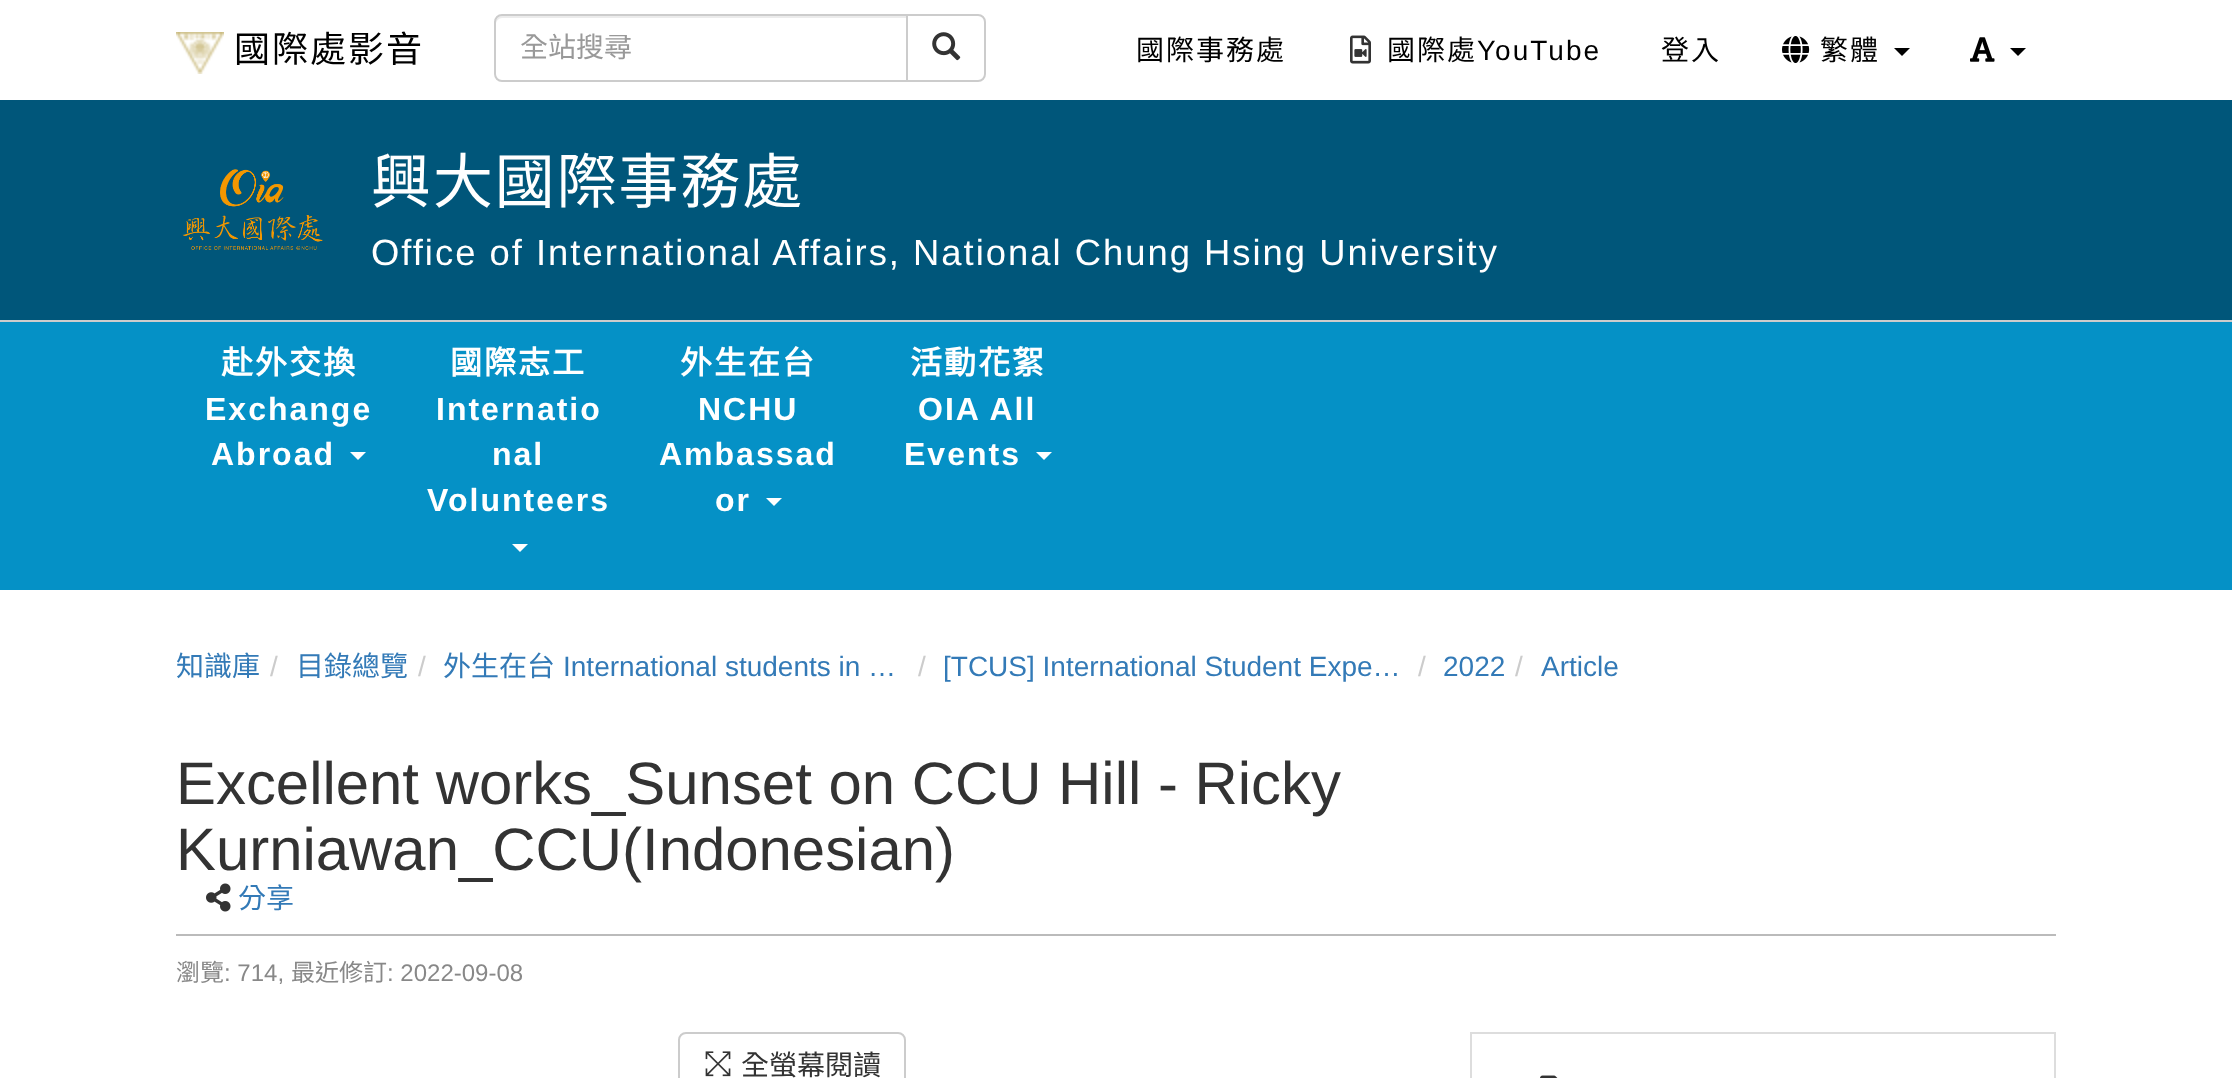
<svg xmlns="http://www.w3.org/2000/svg" width="2232" height="1078" viewBox="0 0 2232 1078">
  <rect width="100%" height="100%" fill="#ffffff"/>
  <image x="176" y="32" width="48" height="42" href="img1.png"/>
  <text x="234" y="62" font-family="Noto Sans CJK TC" font-size="36" letter-spacing="2" fill="#000000">國際處影音</text>
  <path d="M502 18H906V16H502C499 16 496 19 496 22V24C496 21 499 18 502 18Z" fill="#ececec"/>
  <path d="M502 15H907V81H502C498 81 495 78 495 74V22C495 18 498 15 502 15Z" fill="none" stroke="#cccccc" stroke-width="2"/>
  <text x="520" y="57" font-family="Noto Sans CJK TC" font-size="28" fill="#999999">全站搜尋</text>
  <path d="M907 15H978C982 15 985 18 985 22V74C985 78 982 81 978 81H907Z" fill="#ffffff" stroke="#cccccc" stroke-width="2"/>
  <image x="932" y="32" width="29" height="29" href="img2.png"/>
  <text x="1136" y="60" font-family="Noto Sans CJK TC" font-size="28" letter-spacing="2" fill="#000000">國際事務處</text>
  <image x="1350" y="35" width="21" height="29" href="img3.png"/>
  <text x="1387" y="60" font-family="Noto Sans CJK TC" font-size="28" letter-spacing="2" fill="#000000">國際處</text>
  <text x="1477" y="60" font-family="Liberation Sans" font-size="28" letter-spacing="2" fill="#000000">YouTube</text>
  <text x="1661" y="60" font-family="Noto Sans CJK TC" font-size="28" letter-spacing="2" fill="#000000">登入</text>
  <image x="1782" y="36" width="28" height="27" href="img4.png"/>
  <text x="1820" y="60" font-family="Noto Sans CJK TC" font-size="28" letter-spacing="2" fill="#000000">繁體</text>
  <path d="M1894 48H1910L1902 56Z" fill="#000000"/>
  <image x="1970" y="37" width="25" height="25" href="img5.png"/>
  <path d="M2010 48H2026L2018 56Z" fill="#000000"/>
  <rect x="0" y="100" width="2232" height="220" fill="#00567a"/>
  <rect x="0" y="320" width="2232" height="2" fill="#cccccc"/>
  <image x="182" y="169" width="141" height="81" href="img6.png"/>
  <text x="371" y="203" font-family="Noto Sans CJK TC" font-size="59.9" letter-spacing="2" fill="#ffffff">興大國際事務處</text>
  <text x="371" y="265" font-family="Liberation Sans" font-size="36.4" letter-spacing="2" fill="#ffffff">Office of International Affairs, National Chung Hsing University</text>
  <rect x="0" y="322" width="2232" height="268" fill="#0591c6"/>
  <text x="221" y="374" font-family="Noto Sans CJK TC" font-size="32" font-weight="bold" letter-spacing="2" fill="#ffffff">赴外交換</text>
  <text x="205" y="420" font-family="Liberation Sans" font-size="32" font-weight="bold" letter-spacing="2" fill="#ffffff">Exchange</text>
  <text x="211" y="465" font-family="Liberation Sans" font-size="32" font-weight="bold" letter-spacing="2" fill="#ffffff">Abroad</text>
  <path d="M350 452H366L358 460Z" fill="#ffffff"/>
  <text x="450" y="374" font-family="Noto Sans CJK TC" font-size="32" font-weight="bold" letter-spacing="2" fill="#ffffff">國際志工</text>
  <text x="436" y="420" font-family="Liberation Sans" font-size="32" font-weight="bold" letter-spacing="2" fill="#ffffff">Internatio</text>
  <text x="492" y="465" font-family="Liberation Sans" font-size="32" font-weight="bold" letter-spacing="2" fill="#ffffff">nal</text>
  <text x="427" y="511" font-family="Liberation Sans" font-size="32" font-weight="bold" letter-spacing="2" fill="#ffffff">Volunteers</text>
  <path d="M512 544H528L520 552Z" fill="#ffffff"/>
  <text x="680" y="374" font-family="Noto Sans CJK TC" font-size="32" font-weight="bold" letter-spacing="2" fill="#ffffff">外生在台</text>
  <text x="698" y="420" font-family="Liberation Sans" font-size="32" font-weight="bold" letter-spacing="2" fill="#ffffff">NCHU</text>
  <text x="659" y="465" font-family="Liberation Sans" font-size="32" font-weight="bold" letter-spacing="2" fill="#ffffff">Ambassad</text>
  <text x="715" y="511" font-family="Liberation Sans" font-size="32" font-weight="bold" letter-spacing="2" fill="#ffffff">or</text>
  <path d="M766 498H782L774 506Z" fill="#ffffff"/>
  <text x="910" y="374" font-family="Noto Sans CJK TC" font-size="32" font-weight="bold" letter-spacing="2" fill="#ffffff">活動花絮</text>
  <text x="918" y="420" font-family="Liberation Sans" font-size="32" font-weight="bold" letter-spacing="2" fill="#ffffff">OIA All</text>
  <text x="904" y="465" font-family="Liberation Sans" font-size="32" font-weight="bold" letter-spacing="2" fill="#ffffff">Events</text>
  <path d="M1036 452H1052L1044 460Z" fill="#ffffff"/>
  <text x="176" y="676" font-family="Noto Sans CJK TC" font-size="28" fill="#337ab7">知識庫</text>
  <text x="270" y="676" font-family="Liberation Sans" font-size="28" fill="#cccccc">/</text>
  <text x="296" y="676" font-family="Noto Sans CJK TC" font-size="28" fill="#337ab7">目錄總覽</text>
  <text x="418" y="676" font-family="Liberation Sans" font-size="28" fill="#cccccc">/</text>
  <text x="443" y="676" font-family="Noto Sans CJK TC" font-size="28" fill="#337ab7">外生在台</text>
  <text x="563" y="676" font-family="Liberation Sans" font-size="28" fill="#337ab7">International students in …</text>
  <text x="918" y="676" font-family="Liberation Sans" font-size="28" fill="#cccccc">/</text>
  <text x="943" y="676" font-family="Liberation Sans" font-size="28" fill="#337ab7">[TCUS] International Student Expe…</text>
  <text x="1418" y="676" font-family="Liberation Sans" font-size="28" fill="#cccccc">/</text>
  <text x="1443" y="676" font-family="Liberation Sans" font-size="28" fill="#337ab7">2022</text>
  <text x="1515" y="676" font-family="Liberation Sans" font-size="28" fill="#cccccc">/</text>
  <text x="1541" y="676" font-family="Liberation Sans" font-size="28" fill="#337ab7">Article</text>
  <rect x="176" y="934" width="1880" height="2" fill="#bbbbbb"/>
  <text x="176" y="804" font-family="Liberation Sans" font-size="59.9" fill="#333333">Excellent works_Sunset on CCU Hill - Ricky</text>
  <text x="176" y="870" font-family="Liberation Sans" font-size="59.9" fill="#333333">Kurniawan_CCU(Indonesian)</text>
  <image x="206" y="883" width="25" height="29" href="img7.png"/>
  <text x="238" y="908" font-family="Noto Sans CJK TC" font-size="28" fill="#337ab7">分享</text>
  <text x="176" y="981" font-family="Noto Sans CJK TC" font-size="24" fill="#888888">瀏覽</text>
  <text x="224" y="981" font-family="Liberation Sans" font-size="24" fill="#888888">: 714,</text>
  <text x="291" y="981" font-family="Noto Sans CJK TC" font-size="24" fill="#888888">最近修訂</text>
  <text x="387" y="981" font-family="Liberation Sans" font-size="24" fill="#888888">: 2022-09-08</text>
  <rect x="679" y="1033" width="226" height="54" rx="7" fill="none" stroke="#cccccc" stroke-width="2"/>
  <image x="705" y="1051" width="26" height="26" href="img8.png"/>
  <text x="741" y="1075" font-family="Noto Sans CJK TC" font-size="28" fill="#333333">全螢幕閱讀</text>
  <rect x="1471" y="1033" width="584" height="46" fill="none" stroke="#dddddd" stroke-width="2"/>
  <image x="1540" y="1075" width="18" height="3" href="img9.png"/>
</svg>
